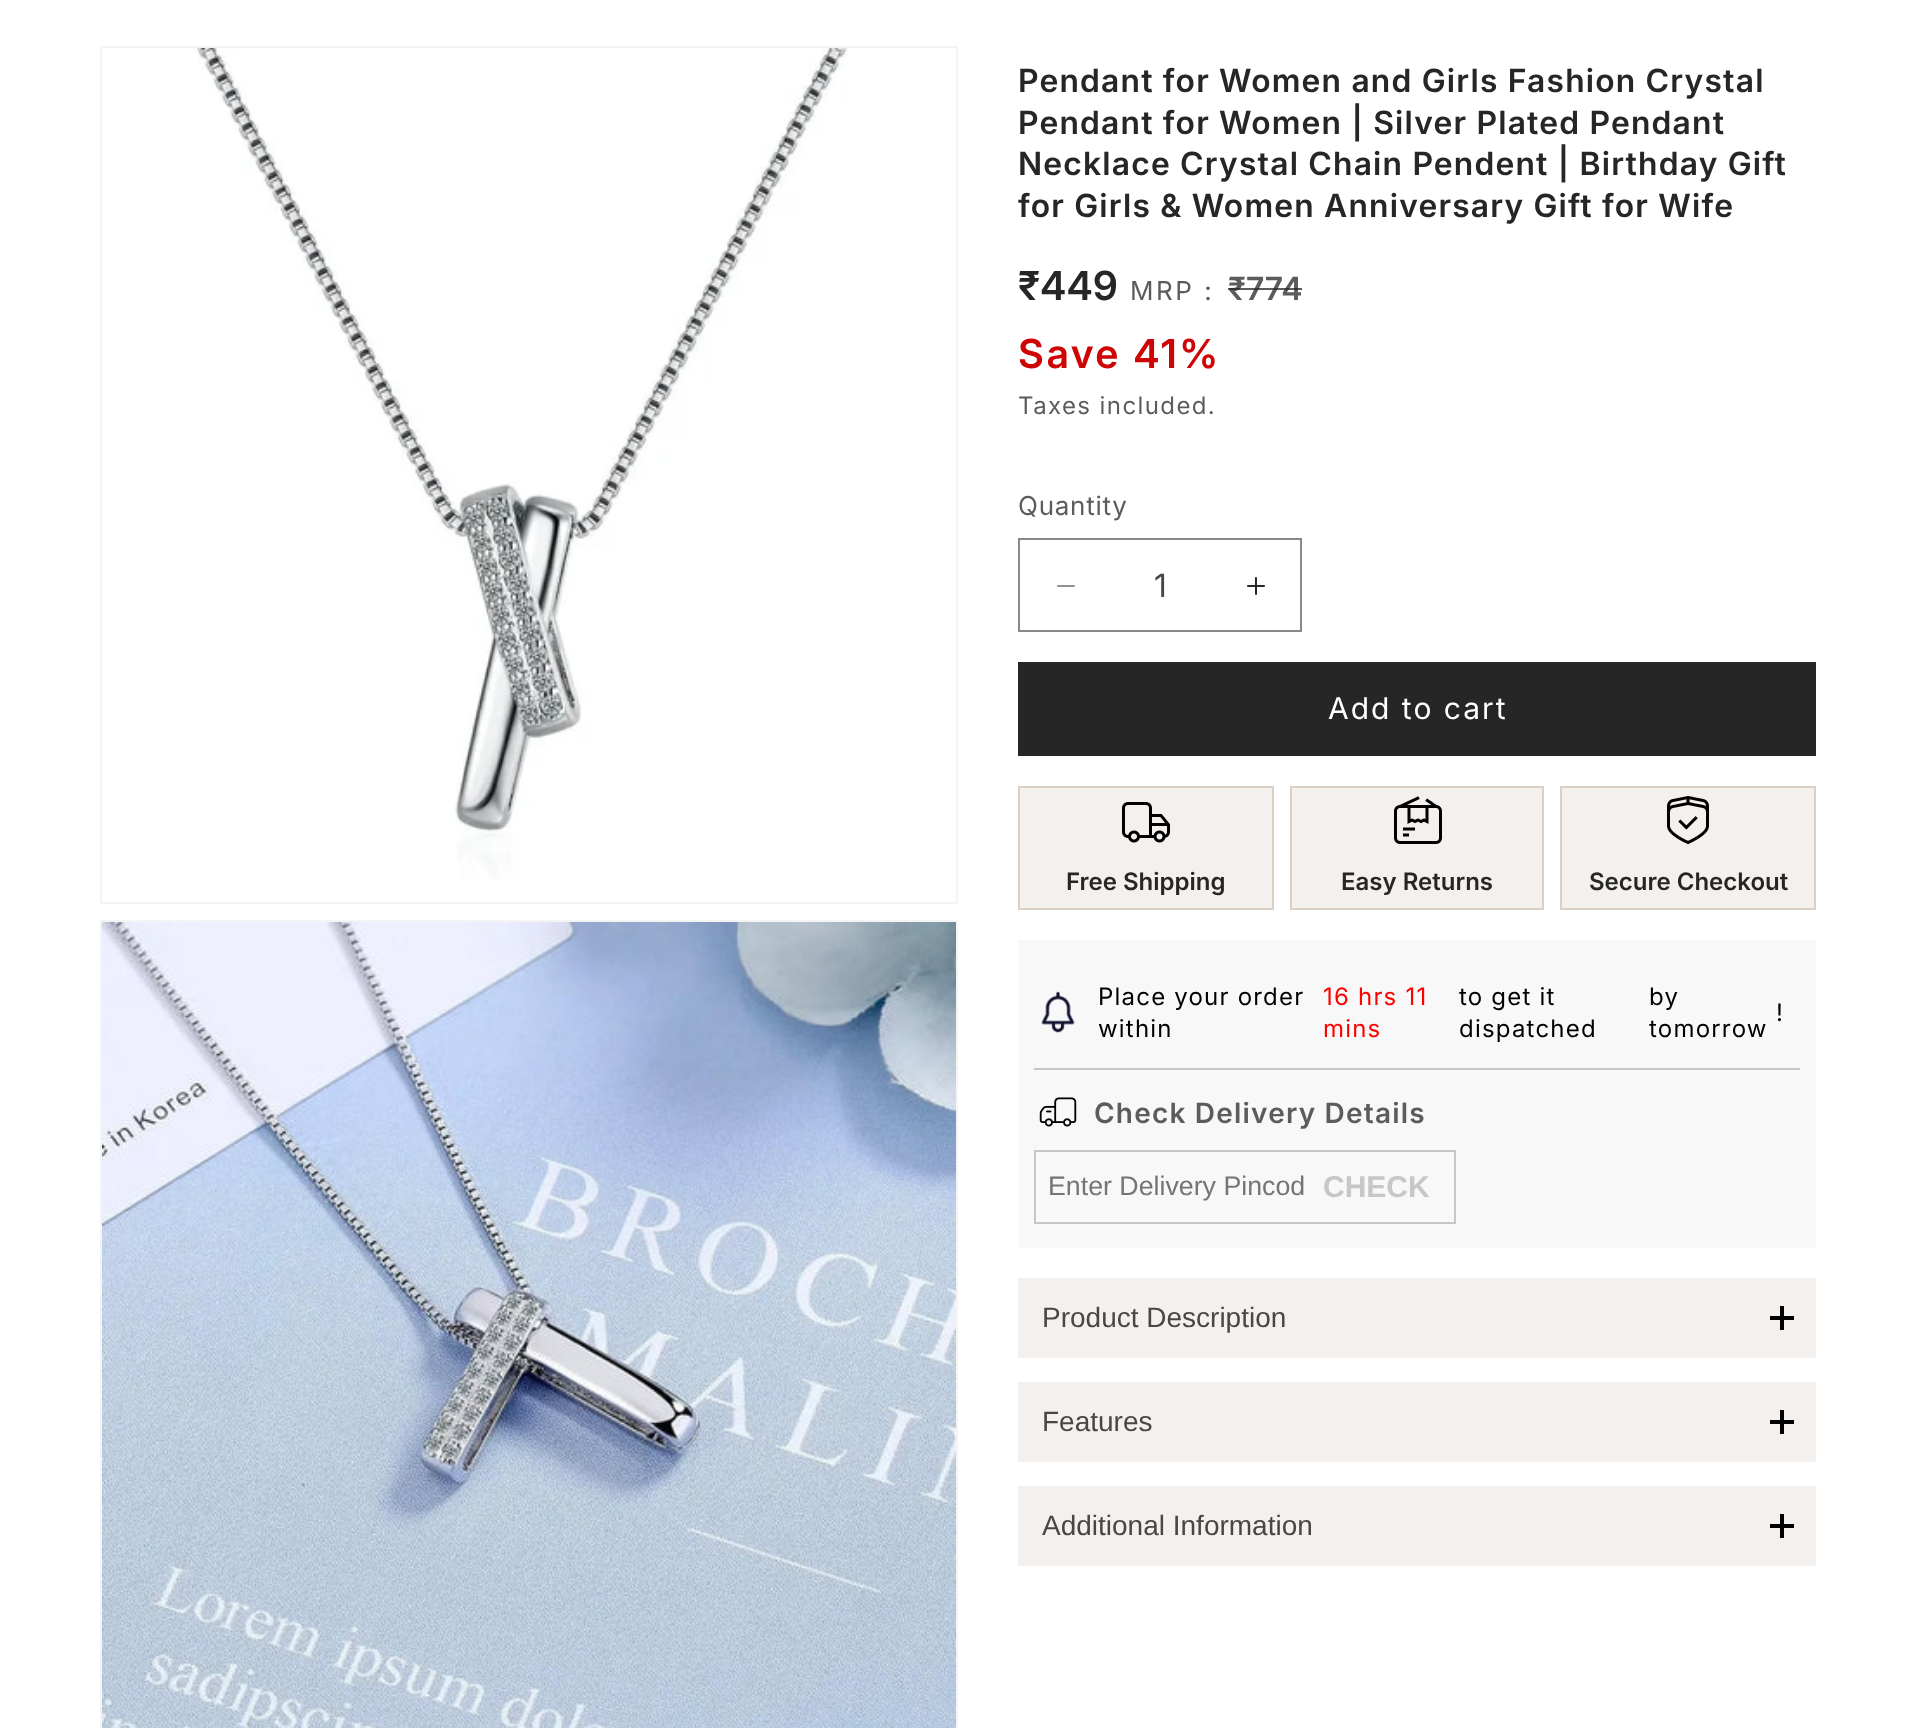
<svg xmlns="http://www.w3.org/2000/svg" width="1916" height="1728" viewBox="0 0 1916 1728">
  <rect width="100%" height="100%" fill="#ffffff"/>
  <rect x="101" y="47" width="856" height="856" fill="none" stroke="#f4f4f4" stroke-width="2"/>
  <image x="194" y="48" width="654" height="831" href="img1.png"/>
  <rect x="101" y="921" width="856" height="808" fill="none" stroke="#f4f4f4" stroke-width="2"/>
  <image x="102" y="922" width="854" height="806" href="img2.png"/>
  <text x="1018" y="92" font-family="Inter" font-size="32" font-weight="600" letter-spacing="1.2" fill="#262626">Pendant for Women and Girls Fashion Crystal</text>
  <text x="1018" y="134" font-family="Inter" font-size="32" font-weight="600" letter-spacing="1.2" fill="#262626">Pendant for Women | Silver Plated Pendant</text>
  <text x="1018" y="175" font-family="Inter" font-size="32" font-weight="600" letter-spacing="1.2" fill="#262626">Necklace Crystal Chain Pendent | Birthday Gift</text>
  <text x="1018" y="217" font-family="Inter" font-size="32" font-weight="600" letter-spacing="1.2" fill="#262626">for Girls &amp; Women Anniversary Gift for Wife</text>
  <text x="1018" y="300" font-family="'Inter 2'" font-size="40" font-weight="600" fill="#262626">₹449</text>
  <text x="1130" y="300" font-family="Inter" font-size="26" letter-spacing="2.5" fill="#5c5c5c">MRP :</text>
  <text x="1228" y="300" font-family="Inter" font-size="32" font-weight="600" fill="#5c5c5c">₹774</text>
  <rect x="1228" y="288" width="74" height="2" fill="#262626" fill-opacity="0.75"/>
  <text x="1018" y="368" font-family="'Inter 2'" font-size="40" font-weight="600" letter-spacing="2.5" fill="#cf0505">Save 41%</text>
  <text x="1018" y="414" font-family="Inter" font-size="24" letter-spacing="1.4" fill="#5c5c5c">Taxes included.</text>
  <text x="1018" y="515" font-family="Inter" font-size="26" letter-spacing="0.75" fill="#5c5c5c">Quantity</text>
  <image x="1057" y="585" width="18" height="2" href="img3.png"/>
  <image x="1247" y="577" width="18" height="18" href="img4.png"/>
  <rect x="1019" y="539" width="282" height="92" fill="none" stroke="#888888" stroke-width="2"/>
  <text x="1154" y="597" font-family="'Inter 2'" font-size="32" fill="#474747">1</text>
  <rect x="1018" y="662" width="798" height="94" fill="#262626"/>
  <text x="1328" y="719" font-family="Inter" font-size="30" letter-spacing="2" fill="#ffffff">Add to cart</text>
  <rect x="1019" y="787" width="254" height="122" fill="#f4f0ed" stroke="#dad0c3" stroke-width="2"/>
  <image x="1122" y="802" width="48" height="41" href="img5.png"/>
  <text x="1066" y="890" font-family="'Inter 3'" font-size="24" font-weight="600" fill="#262626">Free Shipping</text>
  <rect x="1291" y="787" width="252" height="122" fill="#f4f0ed" stroke="#dad0c3" stroke-width="2"/>
  <image x="1394" y="796" width="48" height="48" href="img6.png"/>
  <text x="1341" y="890" font-family="'Inter 3'" font-size="24" font-weight="600" fill="#262626">Easy Returns</text>
  <rect x="1561" y="787" width="254" height="122" fill="#f4f0ed" stroke="#dad0c3" stroke-width="2"/>
  <image x="1667" y="796" width="42" height="48" href="img7.png"/>
  <text x="1589" y="890" font-family="'Inter 3'" font-size="24" font-weight="600" fill="#262626">Secure Checkout</text>
  <rect x="1018" y="940" width="798" height="308" fill="#f8f8f8"/>
  <rect x="1034" y="1068" width="766" height="2" fill="#c7c7c7"/>
  <image x="1041" y="991" width="34" height="42" href="img8.png"/>
  <text x="1098" y="1005" font-family="Inter" font-size="24" letter-spacing="1.2" fill="#000000">Place your order</text>
  <text x="1323" y="1005" font-family="Inter" font-size="24" letter-spacing="1.2" fill="#ff0000">16 hrs 11</text>
  <text x="1323" y="1037" font-family="Inter" font-size="24" letter-spacing="1.2" fill="#ff0000">mins</text>
  <text x="1459" y="1005" font-family="Inter" font-size="24" letter-spacing="1.2" fill="#000000">to get it</text>
  <text x="1649" y="1005" font-family="Inter" font-size="24" letter-spacing="1.2" fill="#000000">by</text>
  <text x="1649" y="1037" font-family="Inter" font-size="24" letter-spacing="1.2" fill="#000000">tomorrow</text>
  <text x="1776" y="1021" font-family="Inter" font-size="24" letter-spacing="1.2" fill="#000000">!</text>
  <text x="1098" y="1037" font-family="Inter" font-size="24" letter-spacing="1.2" fill="#000000">within</text>
  <text x="1459" y="1037" font-family="Inter" font-size="24" letter-spacing="1.2" fill="#000000">dispatched</text>
  <image x="1039" y="1097" width="38" height="30" href="img9.png"/>
  <text x="1094" y="1123" font-family="'Inter 3'" font-size="28" font-weight="600" letter-spacing="1.2" fill="#5c5c5c">Check Delivery Details</text>
  <rect x="1035" y="1151" width="420" height="72" fill="none" stroke="#c7c7c7" stroke-width="2"/>
  <text x="1048" y="1195" font-family="Liberation Sans" font-size="26.75" fill="#757575">Enter Delivery Pincod</text>
  <text x="1323" y="1197" font-family="Liberation Sans" font-size="30" font-weight="bold" fill="#c7c7c7">CHECK</text>
  <rect x="1018" y="1278" width="798" height="80" fill="#f4f0ed"/>
  <text x="1042" y="1327" font-family="Liberation Sans" font-size="28" fill="#474747">Product Description</text>
  <rect x="1780" y="1306" width="4" height="24" fill="#000000"/>
  <rect x="1770" y="1316" width="24" height="4" fill="#000000"/>
  <rect x="1018" y="1382" width="798" height="80" fill="#f4f0ed"/>
  <text x="1042" y="1431" font-family="Liberation Sans" font-size="28" fill="#474747">Features</text>
  <rect x="1780" y="1410" width="4" height="24" fill="#000000"/>
  <rect x="1770" y="1420" width="24" height="4" fill="#000000"/>
  <rect x="1018" y="1486" width="798" height="80" fill="#f4f0ed"/>
  <text x="1042" y="1535" font-family="Liberation Sans" font-size="28" fill="#474747">Additional Information</text>
  <rect x="1780" y="1514" width="4" height="24" fill="#000000"/>
  <rect x="1770" y="1524" width="24" height="4" fill="#000000"/>
</svg>
